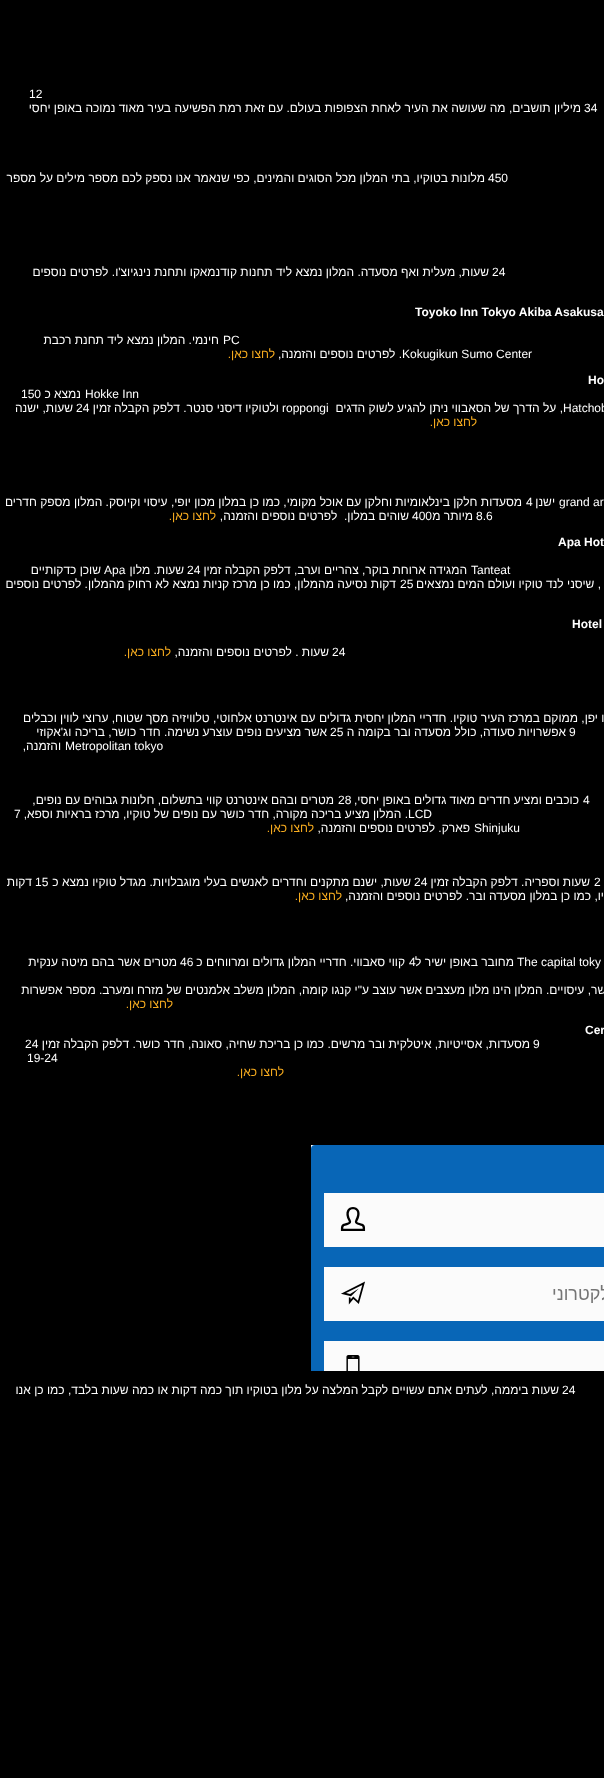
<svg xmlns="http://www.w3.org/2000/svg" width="604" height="1778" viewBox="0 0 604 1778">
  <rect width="100%" height="100%" fill="#000000"/>
  <text x="29" y="98" font-family="Liberation Sans" font-size="12" fill="#ffffff">12</text>
  <text x="584" y="112" font-family="Liberation Sans" font-size="12" fill="#ffffff">34</text>
  <text x="581" y="112" font-family="Liberation Sans" font-size="12" direction="rtl" fill="#ffffff">מיליון תושבים, מה שעושה את העיר לאחת הצפופות בעולם. עם זאת רמת הפשיעה בעיר מאוד נמוכה באופן יחסי</text>
  <text x="488" y="182" font-family="Liberation Sans" font-size="12" fill="#ffffff">450</text>
  <text x="485" y="182" font-family="Liberation Sans" font-size="12" direction="rtl" fill="#ffffff">מלונות בטוקיו, בתי המלון מכל הסוגים והמינים, כפי שנאמר אנו נספק לכם מספר מילים על מספר</text>
  <text x="492" y="276" font-family="Liberation Sans" font-size="12" fill="#ffffff">24</text>
  <text x="489" y="276" font-family="Liberation Sans" font-size="12" direction="rtl" fill="#ffffff">שעות, מעלית ואף מסעדה. המלון נמצא ליד תחנות קודנמאקו ותחנת נינגיוצ'ו. לפרטים נוספים</text>
  <text x="415" y="316" font-family="Liberation Sans" font-size="12" font-weight="bold" fill="#ffffff">Toyoko Inn Tokyo Akiba Asakusa</text>
  <text x="223" y="344" font-family="Liberation Sans" font-size="12" fill="#ffffff">PC</text>
  <text x="219" y="344" font-family="Liberation Sans" font-size="12" direction="rtl" fill="#ffffff">חינמי. המלון נמצא ליד תחנת רכבת</text>
  <text x="402" y="358" font-family="Liberation Sans" font-size="12" fill="#ffffff">Kokugikun Sumo Center</text>
  <text x="402" y="358" font-family="Liberation Sans" font-size="12" direction="rtl" fill="#ffffff">. לפרטים נוספים והזמנה,</text>
  <text x="275" y="358" font-family="Liberation Sans" font-size="12" direction="rtl" fill="#f7ac1f">לחצו כאן.</text>
  <text x="588" y="384" font-family="Liberation Sans" font-size="12" font-weight="bold" fill="#ffffff">Ho</text>
  <text x="85" y="398" font-family="Liberation Sans" font-size="12" fill="#ffffff">Hokke Inn</text>
  <text x="81" y="398" font-family="Liberation Sans" font-size="12" direction="rtl" fill="#ffffff">נמצא כ</text>
  <text x="21" y="398" font-family="Liberation Sans" font-size="12" fill="#ffffff">150</text>
  <text x="563" y="412" font-family="Liberation Sans" font-size="12" fill="#ffffff">Hatchob</text>
  <text x="563" y="412" font-family="Liberation Sans" font-size="12" direction="rtl" fill="#ffffff">, על הדרך של הסאבווי ניתן להגיע לשוק הדגים</text>
  <text x="282" y="412" font-family="Liberation Sans" font-size="12" fill="#ffffff">roppongi</text>
  <text x="279" y="412" font-family="Liberation Sans" font-size="12" direction="rtl" fill="#ffffff">ולטוקיו דיסני סנטר. דלפק הקבלה זמין</text>
  <text x="76" y="412" font-family="Liberation Sans" font-size="12" fill="#ffffff">24</text>
  <text x="73" y="412" font-family="Liberation Sans" font-size="12" direction="rtl" fill="#ffffff">שעות, ישנה</text>
  <text x="477" y="426" font-family="Liberation Sans" font-size="12" direction="rtl" fill="#f7ac1f">לחצו כאן.</text>
  <text x="559" y="506" font-family="Liberation Sans" font-size="12" fill="#ffffff">grand ar</text>
  <text x="555" y="506" font-family="Liberation Sans" font-size="12" direction="rtl" fill="#ffffff">ישנן</text>
  <text x="526" y="506" font-family="Liberation Sans" font-size="12" fill="#ffffff">4</text>
  <text x="522" y="506" font-family="Liberation Sans" font-size="12" direction="rtl" fill="#ffffff">מסעדות חלקן בינלאומיות וחלקן עם אוכל מקומי, כמו כן במלון מכון יופי, עיסוי וקיוסק. המלון מספק חדרים</text>
  <text x="476" y="520" font-family="Liberation Sans" font-size="12" fill="#ffffff">8.6</text>
  <text x="473" y="520" font-family="Liberation Sans" font-size="12" direction="rtl" fill="#ffffff">מיותר מ</text>
  <text x="412" y="520" font-family="Liberation Sans" font-size="12" fill="#ffffff">400</text>
  <text x="409" y="520" font-family="Liberation Sans" font-size="12" direction="rtl" fill="#ffffff" xml:space="preserve">שוהים במלון.  לפרטים נוספים והזמנה,</text>
  <text x="216" y="520" font-family="Liberation Sans" font-size="12" direction="rtl" fill="#f7ac1f">לחצו כאן.</text>
  <text x="558" y="546" font-family="Liberation Sans" font-size="12" font-weight="bold" fill="#ffffff">Apa Hot</text>
  <text x="471" y="574" font-family="Liberation Sans" font-size="12" fill="#ffffff">Tanteat</text>
  <text x="467" y="574" font-family="Liberation Sans" font-size="12" direction="rtl" fill="#ffffff">המגידה ארוחת בוקר, צהריים וערב, דלפק הקבלה זמין</text>
  <text x="187" y="574" font-family="Liberation Sans" font-size="12" fill="#ffffff">24</text>
  <text x="184" y="574" font-family="Liberation Sans" font-size="12" direction="rtl" fill="#ffffff">שעות. מלון</text>
  <text x="104" y="574" font-family="Liberation Sans" font-size="12" fill="#ffffff">Apa</text>
  <text x="101" y="574" font-family="Liberation Sans" font-size="12" direction="rtl" fill="#ffffff">שוכן כדקותיים</text>
  <text x="601" y="588" font-family="Liberation Sans" font-size="12" direction="rtl" fill="#ffffff">, שיסני לנד טוקיו ועולם המים נמצאים</text>
  <text x="400" y="588" font-family="Liberation Sans" font-size="12" fill="#ffffff">25</text>
  <text x="396" y="588" font-family="Liberation Sans" font-size="12" direction="rtl" fill="#ffffff">דקות נסיעה מהמלון, כמו כן מרכז קניות נמצא לא רחוק מהמלון. לפרטים נוספים</text>
  <text x="572" y="628" font-family="Liberation Sans" font-size="12" font-weight="bold" fill="#ffffff">Hotel</text>
  <text x="332" y="656" font-family="Liberation Sans" font-size="12" fill="#ffffff">24</text>
  <text x="329" y="656" font-family="Liberation Sans" font-size="12" direction="rtl" fill="#ffffff">שעות . לפרטים נוספים והזמנה,</text>
  <text x="171" y="656" font-family="Liberation Sans" font-size="12" direction="rtl" fill="#f7ac1f">לחצו כאן.</text>
  <text x="670" y="722" font-family="Liberation Sans" font-size="12" direction="rtl" fill="#ffffff">כוכבים בטוקיו יפן, ממוקם במרכז העיר טוקיו. חדריי המלון יחסית גדולים עם אינטרנט אלחוטי, טלוויזיה מסך שטוח, ערוצי לווין וכבלים</text>
  <text x="569" y="736" font-family="Liberation Sans" font-size="12" fill="#ffffff">9</text>
  <text x="566" y="736" font-family="Liberation Sans" font-size="12" direction="rtl" fill="#ffffff">אפשרויות סעודה, כולל מסעדה ובר בקומה ה</text>
  <text x="330" y="736" font-family="Liberation Sans" font-size="12" fill="#ffffff">25</text>
  <text x="327" y="736" font-family="Liberation Sans" font-size="12" direction="rtl" fill="#ffffff">אשר מציעים נופים עוצרע נשימה. חדר כושר, בריכה וג'אקוזי</text>
  <text x="65" y="750" font-family="Liberation Sans" font-size="12" fill="#ffffff">Metropolitan tokyo</text>
  <text x="61" y="750" font-family="Liberation Sans" font-size="12" direction="rtl" fill="#ffffff">והזמנה,</text>
  <text x="583" y="804" font-family="Liberation Sans" font-size="12" fill="#ffffff">4</text>
  <text x="579" y="804" font-family="Liberation Sans" font-size="12" direction="rtl" fill="#ffffff">כוכבים ומציע חדרים מאוד גדולים באופן יחסי,</text>
  <text x="338" y="804" font-family="Liberation Sans" font-size="12" fill="#ffffff">28</text>
  <text x="334" y="804" font-family="Liberation Sans" font-size="12" direction="rtl" fill="#ffffff">מטרים ובהם אינטרנט קווי בתשלום, חלונות גבוהים עם נופים,</text>
  <text x="408" y="818" font-family="Liberation Sans" font-size="12" fill="#ffffff">LCD</text>
  <text x="408" y="818" font-family="Liberation Sans" font-size="12" direction="rtl" fill="#ffffff">. המלון מציע בריכה מקורה, חדר כושר עם נופים של טוקיו, מרכז בראיות וספא,</text>
  <text x="14" y="818" font-family="Liberation Sans" font-size="12" fill="#ffffff">7</text>
  <text x="474" y="832" font-family="Liberation Sans" font-size="12" fill="#ffffff">Shinjuku</text>
  <text x="470" y="832" font-family="Liberation Sans" font-size="12" direction="rtl" fill="#ffffff">פארק. לפרטים נוספים והזמנה,</text>
  <text x="314" y="832" font-family="Liberation Sans" font-size="12" direction="rtl" fill="#f7ac1f">לחצו כאן.</text>
  <text x="594" y="886" font-family="Liberation Sans" font-size="12" fill="#ffffff">2</text>
  <text x="590" y="886" font-family="Liberation Sans" font-size="12" direction="rtl" fill="#ffffff">שעות וספריה. דלפק הקבלה זמין</text>
  <text x="414" y="886" font-family="Liberation Sans" font-size="12" fill="#ffffff">24</text>
  <text x="411" y="886" font-family="Liberation Sans" font-size="12" direction="rtl" fill="#ffffff">שעות, ישנם מתקנים וחדרים לאנשים בעלי מוגבלויות. מגדל טוקיו נמצא כ</text>
  <text x="35" y="886" font-family="Liberation Sans" font-size="12" fill="#ffffff">15</text>
  <text x="32" y="886" font-family="Liberation Sans" font-size="12" direction="rtl" fill="#ffffff">דקות</text>
  <text x="622" y="900" font-family="Liberation Sans" font-size="12" direction="rtl" fill="#ffffff">טוקיו, כמו כן במלון מסעדה ובר. לפרטים נוספים והזמנה,</text>
  <text x="342" y="900" font-family="Liberation Sans" font-size="12" direction="rtl" fill="#f7ac1f">לחצו כאן.</text>
  <text x="517" y="966" font-family="Liberation Sans" font-size="12" fill="#ffffff">The capital toky</text>
  <text x="514" y="966" font-family="Liberation Sans" font-size="12" direction="rtl" fill="#ffffff">מחובר באופן ישיר ל</text>
  <text x="409" y="966" font-family="Liberation Sans" font-size="12" fill="#ffffff">4</text>
  <text x="405" y="966" font-family="Liberation Sans" font-size="12" direction="rtl" fill="#ffffff">קווי סאבווי. חדריי המלון גדולים ומרווחים כ</text>
  <text x="180" y="966" font-family="Liberation Sans" font-size="12" fill="#ffffff">46</text>
  <text x="177" y="966" font-family="Liberation Sans" font-size="12" direction="rtl" fill="#ffffff">מטרים אשר בהם מיטה ענקית</text>
  <text x="684" y="994" font-family="Liberation Sans" font-size="12" direction="rtl" fill="#ffffff">, סאונה, חדר כושר, עיסויים. המלון הינו מלון מעצבים אשר עוצב ע"י קנגו קומה, המלון משלב אלמנטים של מזרח ומערב. מספר אפשרות</text>
  <text x="173" y="1008" font-family="Liberation Sans" font-size="12" direction="rtl" fill="#f7ac1f">לחצו כאן.</text>
  <text x="585" y="1034" font-family="Liberation Sans" font-size="12" font-weight="bold" fill="#ffffff">Cer</text>
  <text x="533" y="1048" font-family="Liberation Sans" font-size="12" fill="#ffffff">9</text>
  <text x="530" y="1048" font-family="Liberation Sans" font-size="12" direction="rtl" fill="#ffffff">מסעדות, אסייטיות, איטלקית ובר מרשים. כמו כן בריכת שחיה, סאונה, חדר כושר. דלפק הקבלה זמין</text>
  <text x="25" y="1048" font-family="Liberation Sans" font-size="12" fill="#ffffff">24</text>
  <text x="27" y="1062" font-family="Liberation Sans" font-size="12" fill="#ffffff">19-24</text>
  <text x="284" y="1076" font-family="Liberation Sans" font-size="12" direction="rtl" fill="#f7ac1f">לחצו כאן.</text>
  <image x="311" y="1145" width="293" height="226" href="img1.png"/>
  <text x="562" y="1394" font-family="Liberation Sans" font-size="12" fill="#ffffff">24</text>
  <text x="559" y="1394" font-family="Liberation Sans" font-size="12" direction="rtl" fill="#ffffff">שעות ביממה, לעתים אתם עשויים לקבל המלצה על מלון בטוקיו תוך כמה דקות או כמה שעות בלבד, כמו כן אנו</text>
</svg>
